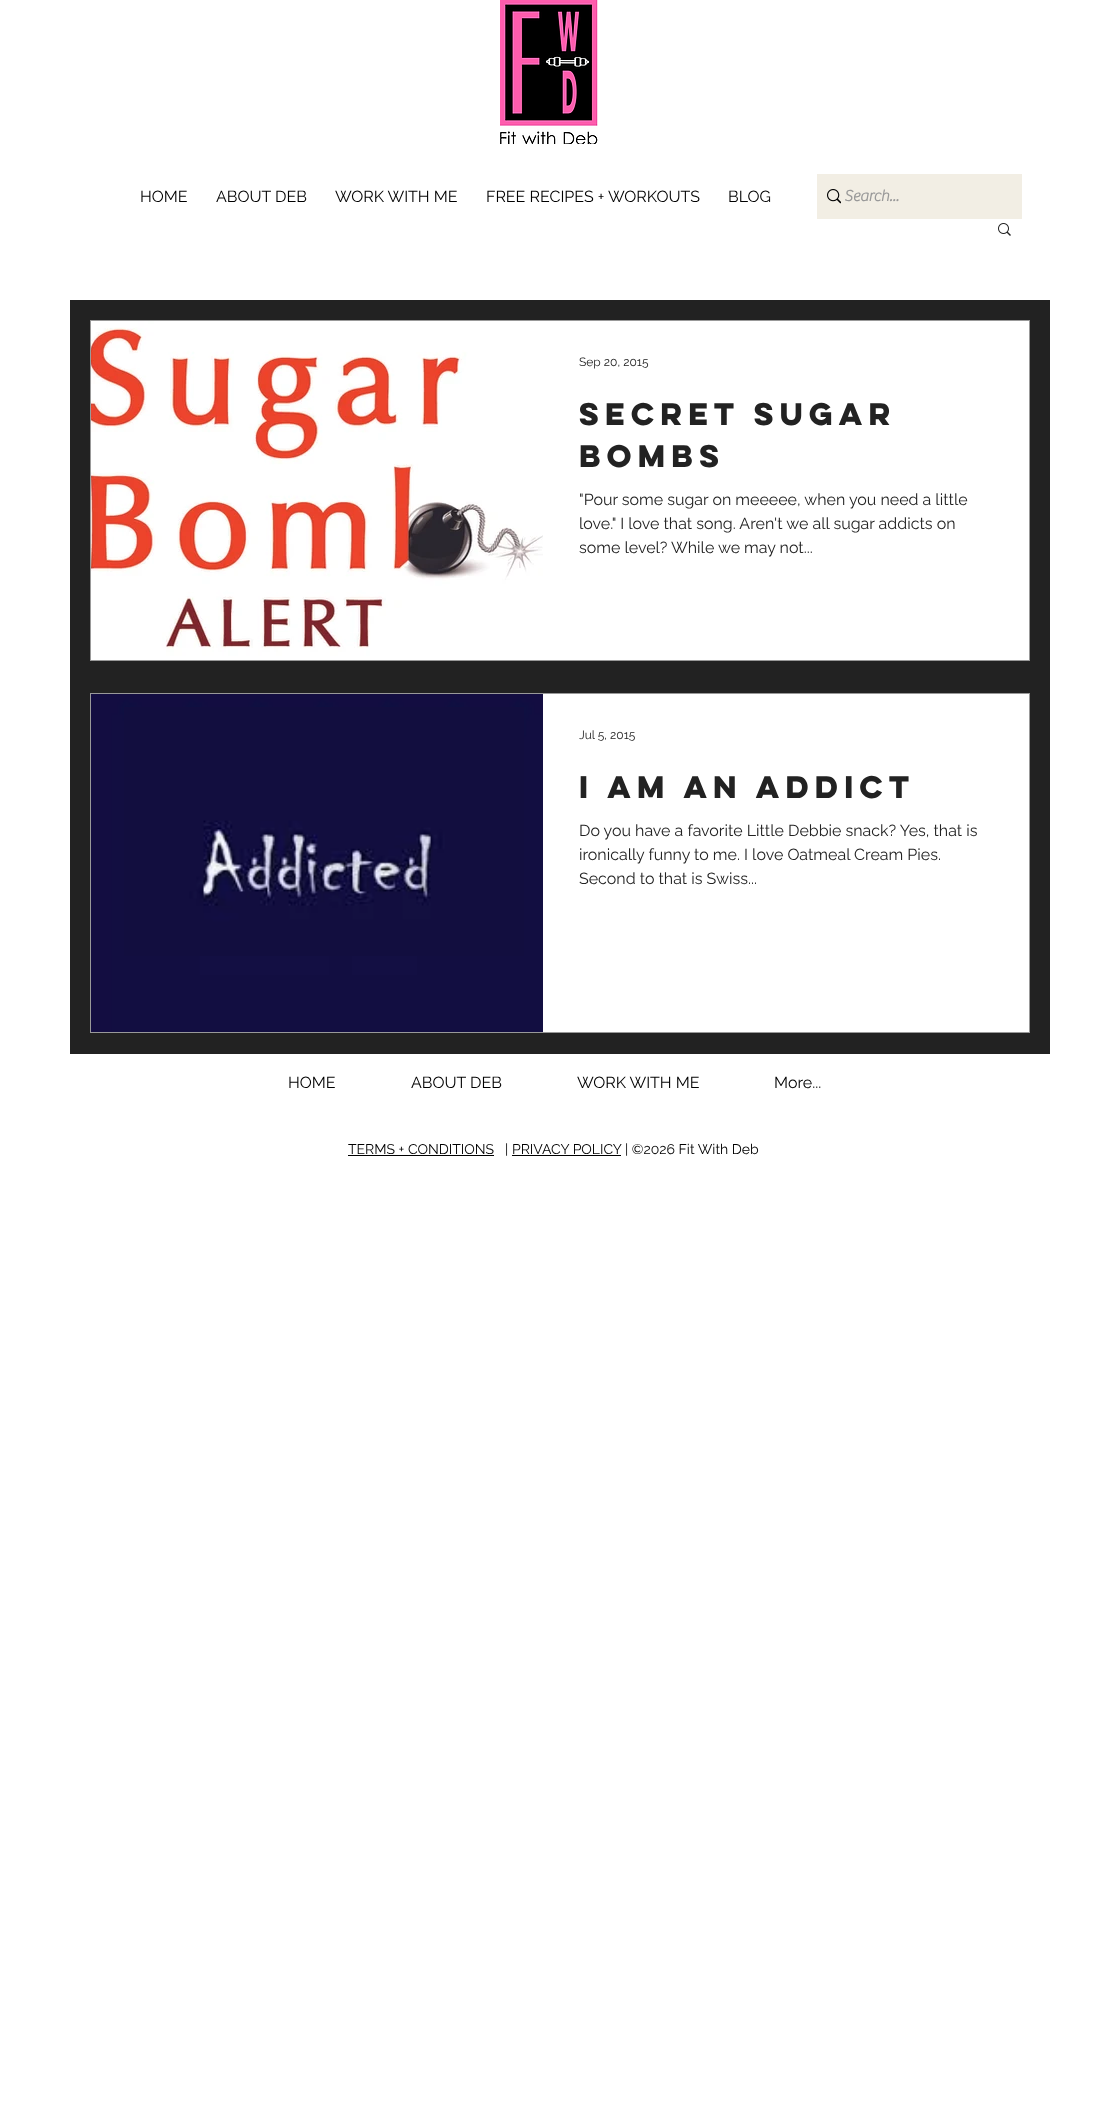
<svg xmlns="http://www.w3.org/2000/svg" width="1120" height="2119" viewBox="0 0 1120 2119">
  <rect width="100%" height="100%" fill="#ffffff"/>
  <image x="500" y="0" width="98" height="144" href="img1.png"/>
  <text x="140" y="202" font-family="Raleway" font-size="16" fill="#000000">HOME</text>
  <text x="216" y="202" font-family="Raleway" font-size="16" fill="#000000">ABOUT DEB</text>
  <text x="335" y="202" font-family="Raleway" font-size="16" fill="#000000">WORK WITH ME</text>
  <text x="486" y="202" font-family="Raleway" font-size="16" fill="#000000">FREE RECIPES + WORKOUTS</text>
  <text x="728" y="202" font-family="Raleway" font-size="16" fill="#000000">BLOG</text>
  <rect x="817" y="174" width="205" height="45" fill="#f2eee4"/>
  <image x="827" y="189" width="14" height="15" href="img2.png"/>
  <text x="844" y="201" font-family="'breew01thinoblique'" font-size="16" font-weight="bold" fill="#999999">Search...</text>
  <rect x="70" y="300" width="980" height="754" fill="#222222"/>
  <image x="998" y="223" width="13" height="13" href="img3.png"/>
  <rect x="90.5" y="320.5" width="939" height="340" fill="none" stroke="#999999"/>
  <image x="91" y="321" width="452" height="339" href="img4.png"/>
  <rect x="543" y="321" width="486" height="339" fill="#ffffff"/>
  <text x="579" y="366" font-family="Raleway" font-size="12" fill="#222222">Sep 20, 2015</text>
  <text x="579" y="425" font-family="'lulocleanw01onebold'" font-size="28" font-weight="bold" fill="#222222">Secret Sugar</text>
  <text x="579" y="467" font-family="'lulocleanw01onebold'" font-size="28" font-weight="bold" fill="#222222">Bombs</text>
  <text x="579" y="505" font-family="Raleway" font-size="16" fill="#222222">"Pour some sugar on meeeee, when you need a little</text>
  <text x="579" y="529" font-family="Raleway" font-size="16" fill="#222222">love." I love that song. Aren't we all sugar addicts on</text>
  <text x="579" y="553" font-family="Raleway" font-size="16" fill="#222222">some level?</text>
  <text x="671" y="553" font-family="Raleway" font-size="16" fill="#222222">While we may not...</text>
  <rect x="90.5" y="693.5" width="939" height="339" fill="none" stroke="#999999"/>
  <image x="91" y="694" width="452" height="338" href="img5.png"/>
  <image x="124" y="707" width="400" height="249" href="img6.png"/>
  <rect x="543" y="694" width="486" height="338" fill="#ffffff"/>
  <text x="579" y="739" font-family="Raleway" font-size="12" fill="#222222">Jul 5, 2015</text>
  <text x="579" y="798" font-family="'lulocleanw01onebold'" font-size="28" font-weight="bold" fill="#222222">I Am An Addict</text>
  <text x="579" y="836" font-family="Raleway" font-size="16" fill="#222222">Do you have a favorite Little Debbie snack? Yes, that is</text>
  <text x="579" y="860" font-family="Raleway" font-size="16" fill="#222222">ironically funny to me. I love Oatmeal Cream Pies.</text>
  <text x="579" y="884" font-family="Raleway" font-size="16" fill="#222222">Second to that is Swiss...</text>
  <text x="288" y="1088" font-family="Raleway" font-size="16" fill="#000000">HOME</text>
  <text x="411" y="1088" font-family="Raleway" font-size="16" fill="#000000">ABOUT DEB</text>
  <text x="577" y="1088" font-family="Raleway" font-size="16" fill="#000000">WORK WITH ME</text>
  <text x="774" y="1088" font-family="Raleway" font-size="16" fill="#000000">More...</text>
  <text x="348" y="1154" font-family="Raleway" font-size="14" fill="#000000">TERMS + CONDITIONS</text>
  <rect x="348" y="1155" width="146" height="1" fill="#000000"/>
  <text x="505" y="1154" font-family="Raleway" font-size="14" fill="#000000">|</text>
  <text x="512" y="1154" font-family="Raleway" font-size="14" fill="#000000">PRIVACY POLICY</text>
  <rect x="512" y="1155" width="109" height="1" fill="#000000"/>
  <text x="625" y="1154" font-family="Raleway" font-size="14" fill="#000000">| ©2026 Fit With Deb</text>
</svg>
